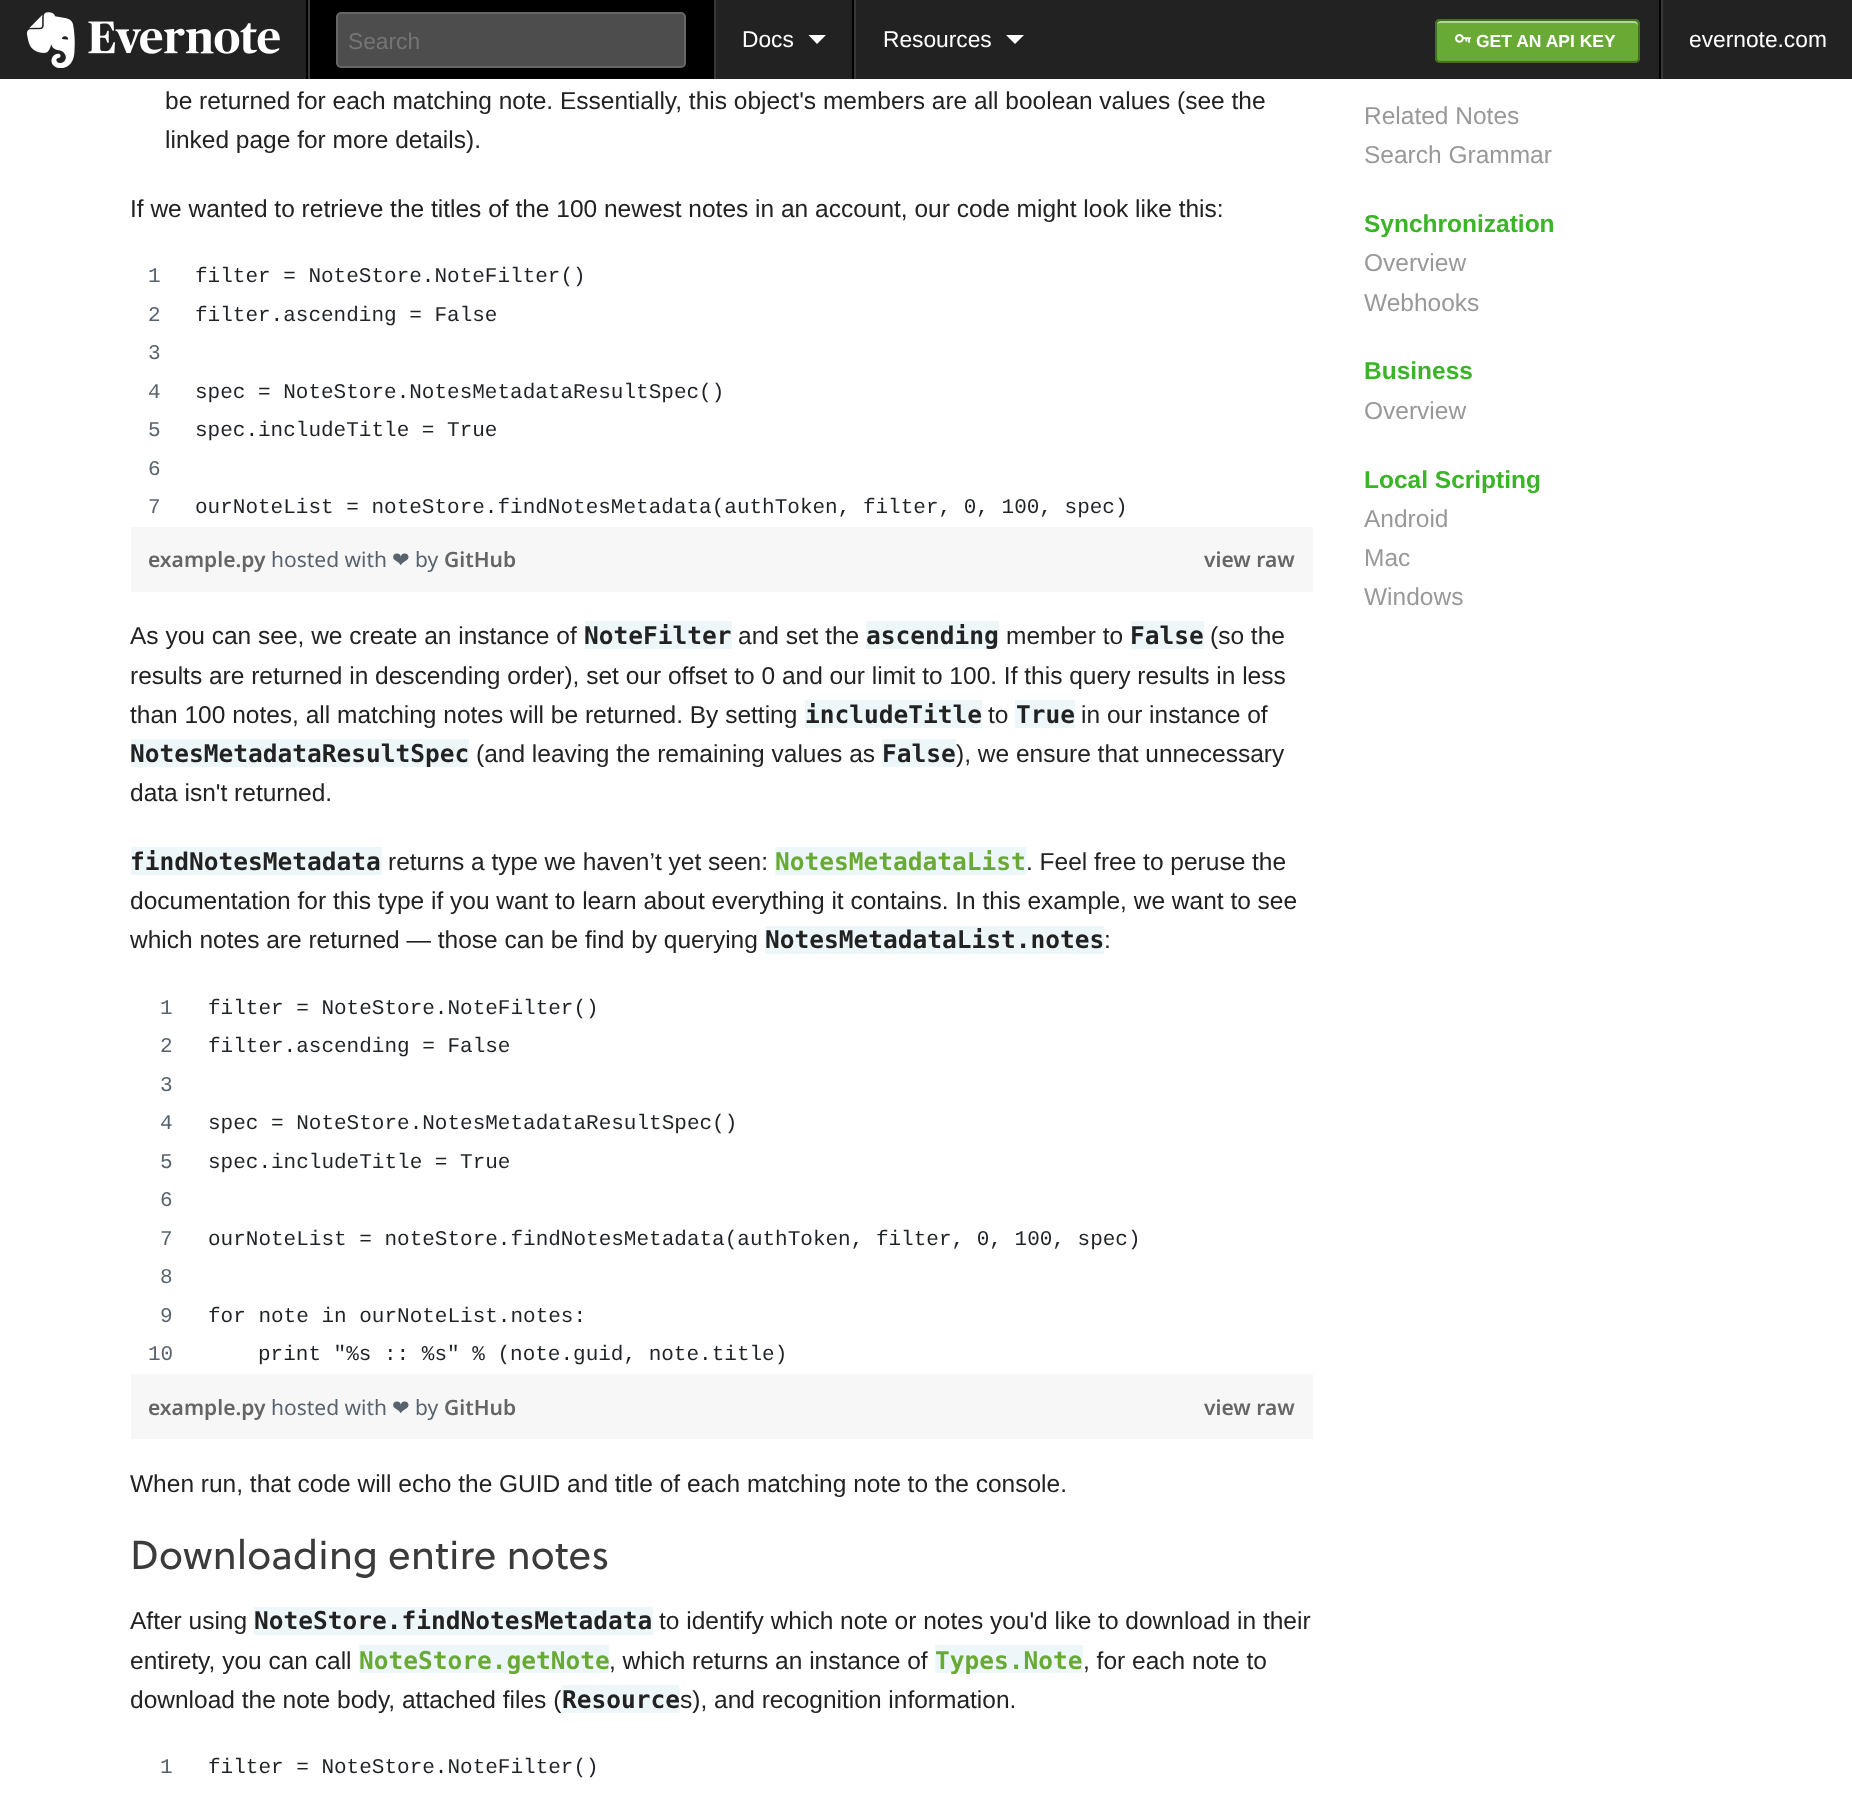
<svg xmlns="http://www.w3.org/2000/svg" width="1852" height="1801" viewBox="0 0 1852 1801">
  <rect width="100%" height="100%" fill="#ffffff"/>
  <rect x="0" y="0" width="1852" height="79" fill="#222222"/>
  <image x="26" y="12" width="254" height="56" href="img1.png"/>
  <rect x="308" y="0" width="2" height="79" fill="#383838"/>
  <rect x="306" y="0" width="2" height="79" fill="#000000"/>
  <rect x="310" y="0" width="404" height="79" fill="#000000"/>
  <rect x="337" y="13" width="348" height="54" rx="4" fill="#4d4d4d" stroke="#666666" stroke-width="2"/>
  <text x="348" y="49" font-family="Liberation Sans" font-size="22.75" fill="#757575">Search</text>
  <rect x="714" y="0" width="2" height="79" fill="#383838"/>
  <text x="742" y="47" font-family="Liberation Sans" font-size="22.75" fill="#ffffff">Docs</text>
  <path d="M808.5 35H826L817 44Z" fill="#ffffff"/>
  <rect x="854" y="0" width="2" height="79" fill="#383838"/>
  <rect x="852" y="0" width="2" height="79" fill="#000000"/>
  <text x="883" y="47" font-family="Liberation Sans" font-size="22.75" fill="#ffffff">Resources</text>
  <path d="M1006 35H1024L1015 44Z" fill="#ffffff"/>
  <rect x="1435" y="19" width="205" height="44" rx="5" fill="#69aa35"/>
  <path d="M1440 23H1634C1636 23 1638 24 1638 26V25C1638 23 1636 21 1634 21H1441C1439 21 1437 23 1437 25V26C1437 24 1438 23 1440 23Z" fill="#b4d59a"/>
  <rect x="1436" y="20" width="203" height="42" rx="4" fill="none" stroke="#457023" stroke-width="2"/>
  <image x="1455" y="34" width="16" height="9" href="img2.png"/>
  <text x="1476" y="47" font-family="Liberation Sans" font-size="17.5" font-weight="bold" fill="#ffffff">GET AN API KEY</text>
  <rect x="1661" y="0" width="2" height="79" fill="#383838"/>
  <rect x="1659" y="0" width="2" height="79" fill="#000000"/>
  <text x="1689" y="47" font-family="Liberation Sans" font-size="22.75" fill="#ffffff">evernote.com</text>
  <text x="165" y="109" font-family="Liberation Sans" font-size="24.5" fill="#222222">be returned for each matching note. Essentially, this object's members are all boolean values (see the</text>
  <text x="165" y="148" font-family="Liberation Sans" font-size="24.5" fill="#222222">linked page for more details).</text>
  <text x="130" y="217" font-family="Liberation Sans" font-size="24.5" fill="#222222">If we wanted to retrieve the titles of the 100 newest notes in an account, our code might look like this:</text>
  <text x="148" y="282" font-family="Liberation Mono" font-size="21" fill="#59636e">1</text>
  <text x="195" y="282" font-family="Liberation Mono" font-size="21" fill="#1f2328">filter = NoteStore.NoteFilter()</text>
  <text x="148" y="321" font-family="Liberation Mono" font-size="21" fill="#59636e">2</text>
  <text x="195" y="321" font-family="Liberation Mono" font-size="21" fill="#1f2328">filter.ascending = False</text>
  <text x="148" y="359" font-family="Liberation Mono" font-size="21" fill="#59636e">3</text>
  <text x="148" y="398" font-family="Liberation Mono" font-size="21" fill="#59636e">4</text>
  <text x="195" y="398" font-family="Liberation Mono" font-size="21" fill="#1f2328">spec = NoteStore.NotesMetadataResultSpec()</text>
  <text x="148" y="436" font-family="Liberation Mono" font-size="21" fill="#59636e">5</text>
  <text x="195" y="436" font-family="Liberation Mono" font-size="21" fill="#1f2328">spec.includeTitle = True</text>
  <text x="148" y="475" font-family="Liberation Mono" font-size="21" fill="#59636e">6</text>
  <text x="148" y="513" font-family="Liberation Mono" font-size="21" fill="#59636e">7</text>
  <text x="195" y="513" font-family="Liberation Mono" font-size="21" fill="#1f2328">ourNoteList = noteStore.findNotesMetadata(authToken, filter, 0, 100, spec)</text>
  <rect x="131" y="527" width="1182" height="65" fill="#f7f7f7"/>
  <text x="148" y="567" font-family="Noto Sans" font-size="21" font-weight="600" fill="#666666">example.py</text>
  <text x="271" y="567" font-family="Noto Sans" font-size="21" fill="#59636e">hosted with</text>
  <text x="392" y="567" font-family="DejaVu Sans" font-size="21" fill="#59636e">❤</text>
  <text x="415" y="567" font-family="Noto Sans" font-size="21" fill="#59636e">by</text>
  <text x="444" y="567" font-family="Noto Sans" font-size="21" font-weight="600" fill="#666666">GitHub</text>
  <text x="1204" y="567" font-family="Noto Sans" font-size="21" font-weight="600" fill="#666666">view raw</text>
  <text x="130" y="644" font-family="Liberation Sans" font-size="24.5" fill="#222222">As you can see, we create an instance of</text>
  <rect x="585" y="621" width="147" height="28" fill="#edf6f9"/>
  <text x="584" y="644" font-family="DejaVu Sans Mono" font-size="24.5" font-weight="bold" fill="#222222">NoteFilter</text>
  <text x="738" y="644" font-family="Liberation Sans" font-size="24.5" fill="#222222">and set the</text>
  <rect x="866" y="621" width="133" height="28" fill="#edf6f9"/>
  <text x="866" y="644" font-family="DejaVu Sans Mono" font-size="24.5" font-weight="bold" fill="#222222">ascending</text>
  <text x="1006" y="644" font-family="Liberation Sans" font-size="24.5" fill="#222222">member to</text>
  <rect x="1131" y="621" width="73" height="28" fill="#edf6f9"/>
  <text x="1130" y="644" font-family="DejaVu Sans Mono" font-size="24.5" font-weight="bold" fill="#222222">False</text>
  <text x="1210" y="644" font-family="Liberation Sans" font-size="24.5" fill="#222222">(so the</text>
  <text x="130" y="684" font-family="Liberation Sans" font-size="24.5" fill="#222222">results are returned in descending order), set our offset to 0 and our limit to 100. If this query results in less</text>
  <text x="130" y="723" font-family="Liberation Sans" font-size="24.5" fill="#222222">than 100 notes, all matching notes will be returned. By setting</text>
  <rect x="805" y="700" width="177" height="28" fill="#edf6f9"/>
  <text x="805" y="723" font-family="DejaVu Sans Mono" font-size="24.5" font-weight="bold" fill="#222222">includeTitle</text>
  <text x="988" y="723" font-family="Liberation Sans" font-size="24.5" fill="#222222">to</text>
  <rect x="1015" y="700" width="60" height="28" fill="#edf6f9"/>
  <text x="1016" y="723" font-family="DejaVu Sans Mono" font-size="24.5" font-weight="bold" fill="#222222">True</text>
  <text x="1081" y="723" font-family="Liberation Sans" font-size="24.5" fill="#222222">in our instance of</text>
  <rect x="131" y="739" width="338" height="28" fill="#edf6f9"/>
  <text x="130" y="762" font-family="DejaVu Sans Mono" font-size="24.5" font-weight="bold" fill="#222222">NotesMetadataResultSpec</text>
  <text x="476" y="762" font-family="Liberation Sans" font-size="24.5" fill="#222222">(and leaving the remaining values as</text>
  <rect x="882" y="739" width="74" height="28" fill="#edf6f9"/>
  <text x="882" y="762" font-family="DejaVu Sans Mono" font-size="24.5" font-weight="bold" fill="#222222">False</text>
  <text x="956" y="762" font-family="Liberation Sans" font-size="24.5" fill="#222222">), we ensure that unnecessary</text>
  <text x="130" y="801" font-family="Liberation Sans" font-size="24.5" fill="#222222">data isn't returned.</text>
  <rect x="131" y="847" width="251" height="28" fill="#edf6f9"/>
  <text x="130" y="870" font-family="DejaVu Sans Mono" font-size="24.5" font-weight="bold" fill="#222222">findNotesMetadata</text>
  <text x="388" y="870" font-family="Liberation Sans" font-size="24.5" fill="#222222">returns a type we haven’t yet seen:</text>
  <rect x="775" y="847" width="251" height="28" fill="#edf6f9"/>
  <text x="775" y="870" font-family="DejaVu Sans Mono" font-size="24.5" font-weight="bold" fill="#69aa35">NotesMetadataList</text>
  <text x="1026" y="870" font-family="Liberation Sans" font-size="24.5" fill="#222222">. Feel free to peruse the</text>
  <text x="130" y="909" font-family="Liberation Sans" font-size="24.5" fill="#222222">documentation for this type if you want to learn about everything it contains. In this example, we want to see</text>
  <text x="130" y="948" font-family="Liberation Sans" font-size="24.5" fill="#222222">which notes are returned — those can be find by querying</text>
  <rect x="765" y="926" width="339" height="28" fill="#edf6f9"/>
  <text x="765" y="948" font-family="DejaVu Sans Mono" font-size="24.5" font-weight="bold" fill="#222222">NotesMetadataList.notes</text>
  <text x="1104" y="948" font-family="Liberation Sans" font-size="24.5" fill="#222222">:</text>
  <text x="160" y="1014" font-family="Liberation Mono" font-size="21" fill="#59636e">1</text>
  <text x="208" y="1014" font-family="Liberation Mono" font-size="21" fill="#1f2328">filter = NoteStore.NoteFilter()</text>
  <text x="160" y="1052" font-family="Liberation Mono" font-size="21" fill="#59636e">2</text>
  <text x="208" y="1052" font-family="Liberation Mono" font-size="21" fill="#1f2328">filter.ascending = False</text>
  <text x="160" y="1091" font-family="Liberation Mono" font-size="21" fill="#59636e">3</text>
  <text x="160" y="1129" font-family="Liberation Mono" font-size="21" fill="#59636e">4</text>
  <text x="208" y="1129" font-family="Liberation Mono" font-size="21" fill="#1f2328">spec = NoteStore.NotesMetadataResultSpec()</text>
  <text x="160" y="1168" font-family="Liberation Mono" font-size="21" fill="#59636e">5</text>
  <text x="208" y="1168" font-family="Liberation Mono" font-size="21" fill="#1f2328">spec.includeTitle = True</text>
  <text x="160" y="1206" font-family="Liberation Mono" font-size="21" fill="#59636e">6</text>
  <text x="160" y="1245" font-family="Liberation Mono" font-size="21" fill="#59636e">7</text>
  <text x="208" y="1245" font-family="Liberation Mono" font-size="21" fill="#1f2328">ourNoteList = noteStore.findNotesMetadata(authToken, filter, 0, 100, spec)</text>
  <text x="160" y="1283" font-family="Liberation Mono" font-size="21" fill="#59636e">8</text>
  <text x="160" y="1322" font-family="Liberation Mono" font-size="21" fill="#59636e">9</text>
  <text x="208" y="1322" font-family="Liberation Mono" font-size="21" fill="#1f2328">for note in ourNoteList.notes:</text>
  <text x="148" y="1360" font-family="Liberation Mono" font-size="21" fill="#59636e">10</text>
  <text x="258" y="1360" font-family="Liberation Mono" font-size="21" fill="#1f2328">print "%s :: %s" % (note.guid, note.title)</text>
  <rect x="131" y="1374" width="1182" height="65" fill="#f7f7f7"/>
  <text x="148" y="1415" font-family="Noto Sans" font-size="21" font-weight="600" fill="#666666">example.py</text>
  <text x="271" y="1415" font-family="Noto Sans" font-size="21" fill="#59636e">hosted with</text>
  <text x="392" y="1415" font-family="DejaVu Sans" font-size="21" fill="#59636e">❤</text>
  <text x="415" y="1415" font-family="Noto Sans" font-size="21" fill="#59636e">by</text>
  <text x="444" y="1415" font-family="Noto Sans" font-size="21" font-weight="600" fill="#666666">GitHub</text>
  <text x="1204" y="1415" font-family="Noto Sans" font-size="21" font-weight="600" fill="#666666">view raw</text>
  <text x="130" y="1492" font-family="Liberation Sans" font-size="24.5" fill="#222222">When run, that code will echo the GUID and title of each matching note to the console.</text>
  <text x="130" y="1569" font-family="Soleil" font-size="40.25" fill="#3b3b3b">Downloading entire notes</text>
  <text x="130" y="1629" font-family="Liberation Sans" font-size="24.5" fill="#222222">After using</text>
  <rect x="254" y="1607" width="399" height="28" fill="#edf6f9"/>
  <text x="254" y="1629" font-family="DejaVu Sans Mono" font-size="24.5" font-weight="bold" fill="#222222">NoteStore.findNotesMetadata</text>
  <text x="659" y="1629" font-family="Liberation Sans" font-size="24.5" fill="#222222">to identify which note or notes you'd like to download in their</text>
  <text x="130" y="1669" font-family="Liberation Sans" font-size="24.5" fill="#222222">entirety, you can call</text>
  <rect x="359" y="1645" width="250" height="28" fill="#edf6f9"/>
  <text x="359" y="1669" font-family="DejaVu Sans Mono" font-size="24.5" font-weight="bold" fill="#69aa35">NoteStore.getNote</text>
  <text x="609" y="1669" font-family="Liberation Sans" font-size="24.5" fill="#222222">, which returns an instance of</text>
  <rect x="935" y="1645" width="148" height="28" fill="#edf6f9"/>
  <text x="935" y="1669" font-family="DejaVu Sans Mono" font-size="24.5" font-weight="bold" fill="#69aa35">Types.Note</text>
  <text x="1083" y="1669" font-family="Liberation Sans" font-size="24.5" fill="#222222">, for each note to</text>
  <text x="130" y="1708" font-family="Liberation Sans" font-size="24.5" fill="#222222">download the note body, attached files (</text>
  <rect x="562" y="1685" width="117" height="28" fill="#edf6f9"/>
  <text x="562" y="1708" font-family="DejaVu Sans Mono" font-size="24.5" font-weight="bold" fill="#222222">Resource</text>
  <text x="680" y="1708" font-family="Liberation Sans" font-size="24.5" fill="#222222">s), and recognition information.</text>
  <text x="160" y="1773" font-family="Liberation Mono" font-size="21" fill="#59636e">1</text>
  <text x="208" y="1773" font-family="Liberation Mono" font-size="21" fill="#1f2328">filter = NoteStore.NoteFilter()</text>
  <text x="1364" y="124" font-family="Liberation Sans" font-size="24.5" fill="#999999">Related Notes</text>
  <text x="1364" y="163" font-family="Liberation Sans" font-size="24.5" fill="#999999">Search Grammar</text>
  <text x="1364" y="232" font-family="Liberation Sans" font-size="24.5" font-weight="bold" fill="#3bb428">Synchronization</text>
  <text x="1364" y="271" font-family="Liberation Sans" font-size="24.5" fill="#999999">Overview</text>
  <text x="1364" y="311" font-family="Liberation Sans" font-size="24.5" fill="#999999">Webhooks</text>
  <text x="1364" y="379" font-family="Liberation Sans" font-size="24.5" font-weight="bold" fill="#3bb428">Business</text>
  <text x="1364" y="419" font-family="Liberation Sans" font-size="24.5" fill="#999999">Overview</text>
  <text x="1364" y="488" font-family="Liberation Sans" font-size="24.5" font-weight="bold" fill="#3bb428">Local Scripting</text>
  <text x="1364" y="527" font-family="Liberation Sans" font-size="24.5" fill="#999999">Android</text>
  <text x="1364" y="566" font-family="Liberation Sans" font-size="24.5" fill="#999999">Mac</text>
  <text x="1364" y="605" font-family="Liberation Sans" font-size="24.5" fill="#999999">Windows</text>
</svg>
